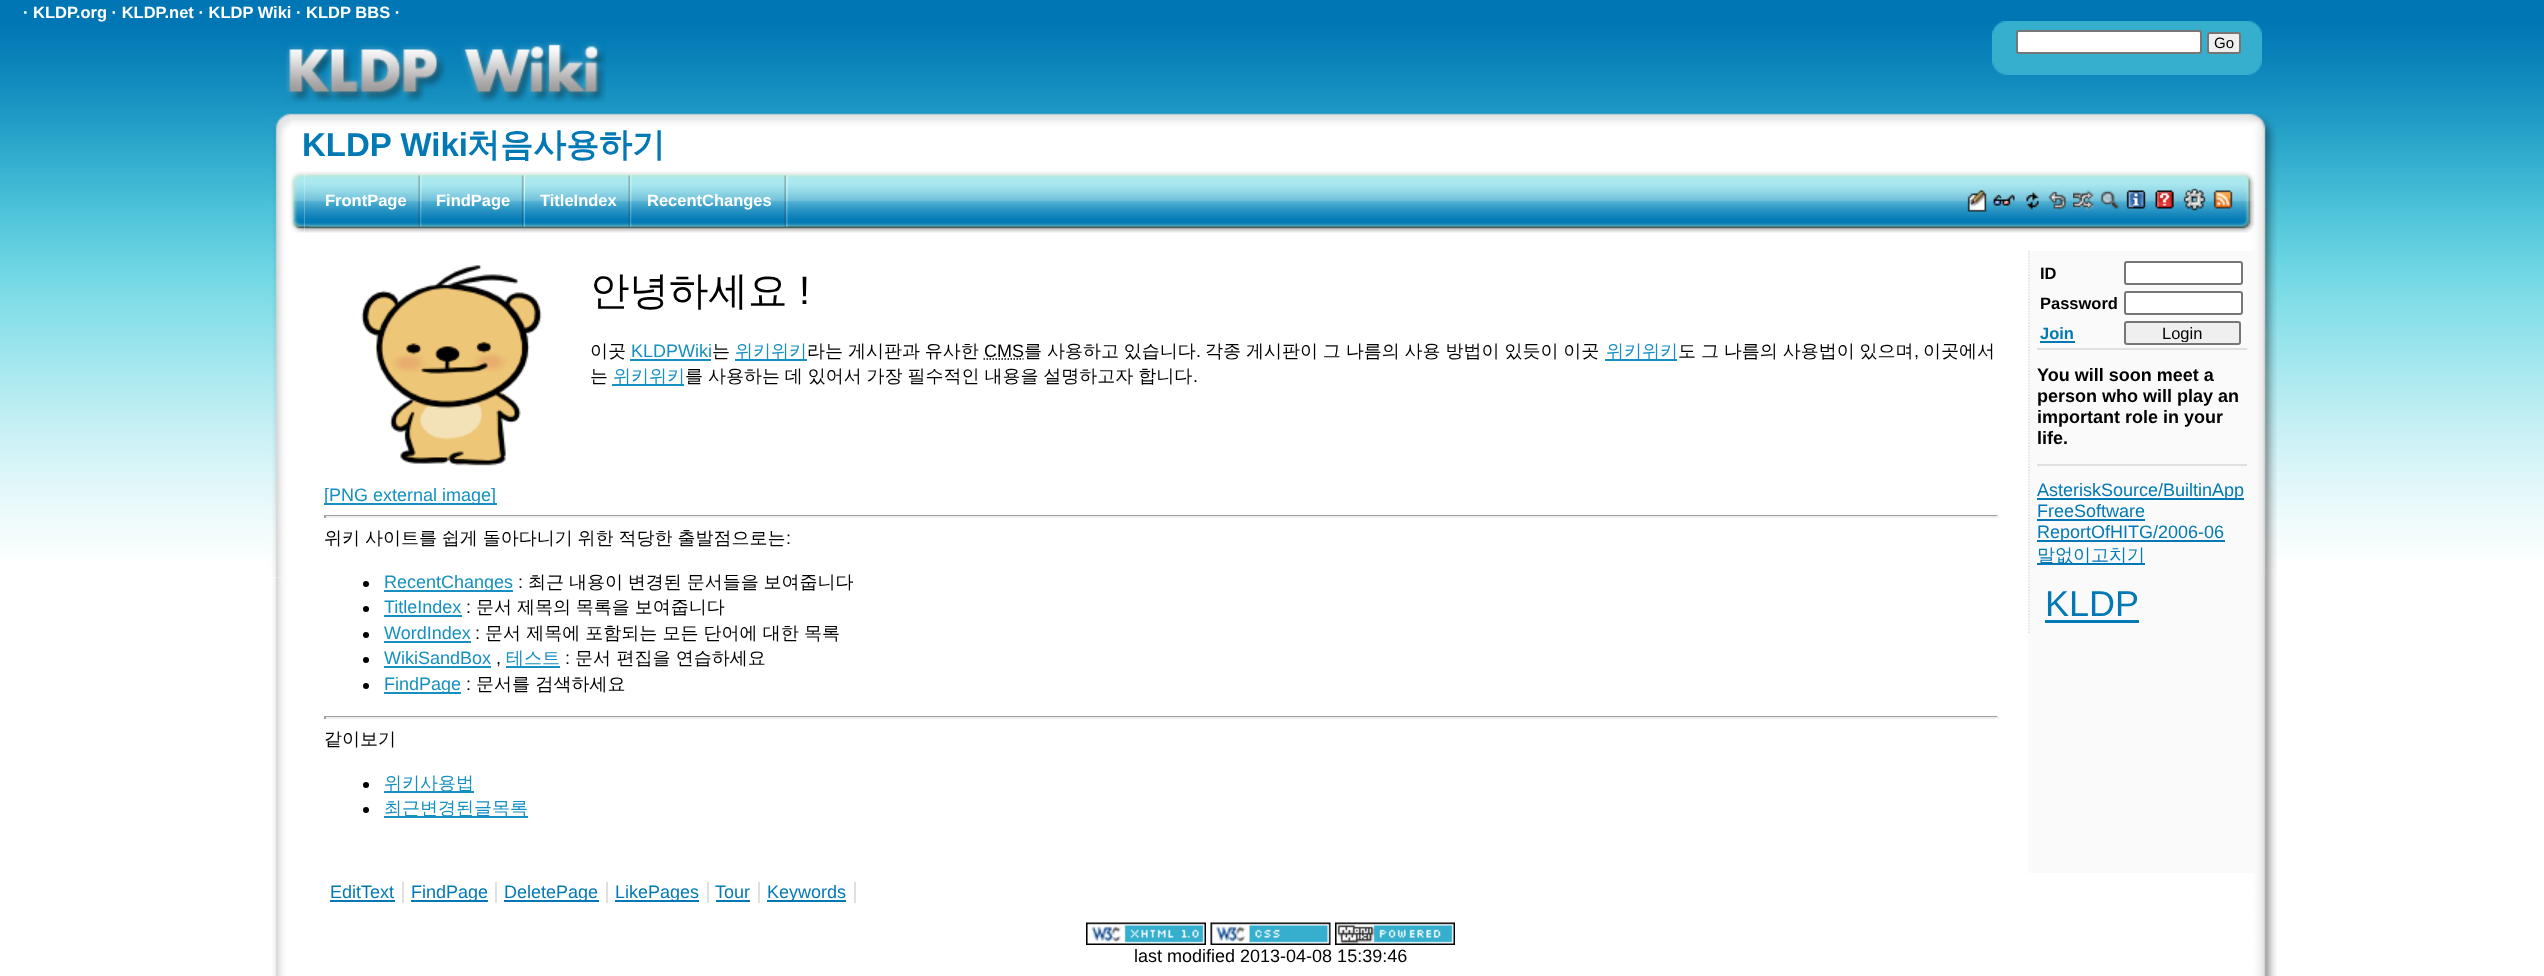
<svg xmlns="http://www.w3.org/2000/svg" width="2544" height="976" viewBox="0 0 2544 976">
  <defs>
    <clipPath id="clip1"><rect x="2127" y="324" width="111" height="18"/></clipPath>
  </defs>
  <rect width="100%" height="100%" fill="#ffffff"/>
  <rect x="0" y="0" width="2544" height="21" fill="#0077b4"/>
  <image x="0" y="21" width="2544" height="538" href="img1.png"/>
  <text x="23" y="18" font-family="Liberation Sans" font-size="16.5" font-weight="bold" fill="#ffffff">· KLDP.org · KLDP.net · KLDP Wiki · KLDP BBS ·</text>
  <image x="285" y="40" width="321" height="63" href="img2.png"/>
  <image x="1992" y="21" width="18" height="54" href="img3.png"/>
  <image x="2010" y="21" width="252" height="54" href="img4.png"/>
  <rect x="2017" y="31" width="184" height="22" rx="2" fill="#ffffff" stroke="#767676" stroke-width="2"/>
  <rect x="2208" y="33" width="32" height="20" rx="2" fill="#efefef" stroke="#767676" stroke-width="2"/>
  <text x="2214" y="48" font-family="Liberation Sans" font-size="15" fill="#000000">Go</text>
  <image x="2250" y="577" width="27" height="399" href="img5.png"/>
  <image x="267" y="577" width="23" height="399" href="img6.png"/>
  <image x="267" y="108" width="2010" height="470" href="img7.png"/>
  <image x="267" y="113" width="24" height="465" href="img8.png"/>
  <text x="302" y="156" font-family="Liberation Sans" font-size="33" font-weight="bold" fill="#0279b5">KLDP Wiki</text>
  <text x="467" y="156" font-family="WenQuanYi Zen Hei" font-size="33" font-weight="bold" fill="#0279b5">처음사용하기</text>
  <image x="304" y="171" width="1951" height="62" href="img9.png"/>
  <image x="290" y="171" width="15" height="62" href="img10.png"/>
  <image x="309" y="175" width="113" height="52" href="img11.png"/>
  <text x="325" y="206" font-family="Liberation Sans" font-size="16.5" font-weight="bold" fill="#ffffff">FrontPage</text>
  <image x="421" y="175" width="104" height="52" href="img12.png"/>
  <text x="436" y="206" font-family="Liberation Sans" font-size="16.5" font-weight="bold" fill="#ffffff">FindPage</text>
  <image x="525" y="175" width="107" height="52" href="img13.png"/>
  <text x="540" y="206" font-family="Liberation Sans" font-size="16.5" font-weight="bold" fill="#ffffff">TitleIndex</text>
  <image x="631" y="175" width="157" height="52" href="img14.png"/>
  <text x="647" y="206" font-family="Liberation Sans" font-size="16.5" font-weight="bold" fill="#ffffff">RecentChanges</text>
  <image x="1967" y="190" width="20" height="22" href="img15.png"/>
  <image x="1993" y="194" width="22" height="12" href="img16.png"/>
  <image x="2026" y="191" width="13" height="20" href="img17.png"/>
  <image x="2047" y="189" width="20" height="21" href="img18.png"/>
  <image x="2073" y="190" width="21" height="20" href="img19.png"/>
  <image x="2100" y="190" width="20" height="19" href="img20.png"/>
  <image x="2126" y="190" width="20" height="19" href="img21.png"/>
  <image x="2155" y="190" width="19" height="19" href="img22.png"/>
  <image x="2183" y="188" width="23" height="23" href="img23.png"/>
  <image x="2213" y="190" width="20" height="19" href="img24.png"/>
  <text x="590" y="304" font-family="WenQuanYi Zen Hei" font-size="39.5" font-weight="500" fill="#000000">안녕하세요</text>
  <text x="799" y="304" font-family="Liberation Sans" font-size="39.5" fill="#000000">!</text>
  <image x="361" y="265" width="181" height="201" href="img25.png"/>
  <rect x="324" y="503" width="173" height="2" fill="#1690c0"/>
  <text x="324" y="501" font-family="Liberation Sans" font-size="18" fill="#1690c0">[PNG external image]</text>
  <text x="590" y="357" font-family="WenQuanYi Zen Hei" font-size="18" font-weight="500" fill="#000000">이곳</text>
  <text x="631" y="357" font-family="Liberation Sans" font-size="18" fill="#1690c0">KLDPWiki</text>
  <rect x="630" y="359" width="81" height="2" fill="#1690c0"/>
  <text x="712" y="357" font-family="WenQuanYi Zen Hei" font-size="18" font-weight="500" fill="#000000">는</text>
  <rect x="735" y="359" width="72" height="2" fill="#1690c0"/>
  <text x="735" y="357" font-family="WenQuanYi Zen Hei" font-size="18" font-weight="500" fill="#1690c0">위키위키</text>
  <text x="807" y="357" word-spacing="-0.5" font-family="WenQuanYi Zen Hei" font-size="18" font-weight="500" fill="#000000">라는 게시판과 유사한</text>
  <text x="984" y="357" font-family="Liberation Sans" font-size="18" fill="#000000">CMS</text>
  <path d="M983.5 359H1023.5" fill="none" stroke="#000000" stroke-width="1.5" stroke-dasharray="1.5 1.5"/>
  <text x="1024" y="357" word-spacing="-0.5" font-family="WenQuanYi Zen Hei" font-size="18" font-weight="500" fill="#000000">를 사용하고 있습니다</text>
  <text x="1196" y="357" font-family="Liberation Sans" font-size="18" fill="#000000">.</text>
  <text x="1205" y="357" word-spacing="-0.5" font-family="WenQuanYi Zen Hei" font-size="18" font-weight="500" fill="#000000">각종 게시판이 그 나름의 사용 방법이 있듯이 이곳</text>
  <rect x="1605" y="359" width="72" height="2" fill="#1690c0"/>
  <text x="1606" y="357" font-family="WenQuanYi Zen Hei" font-size="18" font-weight="500" fill="#1690c0">위키위키</text>
  <text x="1678" y="357" word-spacing="-0.5" font-family="WenQuanYi Zen Hei" font-size="18" font-weight="500" fill="#000000">도 그 나름의 사용법이 있으며</text>
  <text x="1914" y="357" font-family="Liberation Sans" font-size="18" fill="#000000">,</text>
  <text x="1923" y="357" font-family="WenQuanYi Zen Hei" font-size="18" font-weight="500" fill="#000000">이곳에서</text>
  <text x="590" y="382" font-family="WenQuanYi Zen Hei" font-size="18" font-weight="500" fill="#000000">는</text>
  <rect x="612" y="384" width="72" height="2" fill="#1690c0"/>
  <text x="613" y="382" font-family="WenQuanYi Zen Hei" font-size="18" font-weight="500" fill="#1690c0">위키위키</text>
  <text x="685" y="382" word-spacing="-0.5" font-family="WenQuanYi Zen Hei" font-size="18" font-weight="500" fill="#000000">를 사용하는 데 있어서 가장 필수적인 내용을 설명하고자 합니다</text>
  <text x="1193" y="382" font-family="Liberation Sans" font-size="18" fill="#000000">.</text>
  <rect x="324" y="515" width="1674" height="1" fill="#9f9f9f"/>
  <rect x="1997" y="515" width="2" height="3" fill="#eeeeee"/>
  <rect x="324" y="516" width="1674" height="2" fill="#eeeeee"/>
  <rect x="324" y="515" width="2" height="3" fill="#9f9f9f"/>
  <text x="324" y="544" word-spacing="-0.5" font-family="WenQuanYi Zen Hei" font-size="18" font-weight="500" fill="#000000">위키 사이트를 쉽게 돌아다니기 위한 적당한 출발점으로는</text>
  <text x="786" y="544" font-family="Liberation Sans" font-size="18" fill="#000000">:</text>
  <circle cx="366" cy="584" r="3" fill="#000000"/>
  <rect x="384" y="590" width="129" height="2" fill="#1690c0"/>
  <text x="384" y="588" font-family="Liberation Sans" font-size="18" fill="#1690c0">RecentChanges</text>
  <text x="518" y="588" font-family="Liberation Sans" font-size="18" fill="#000000">:</text>
  <text x="528" y="588" word-spacing="-0.5" font-family="WenQuanYi Zen Hei" font-size="18" font-weight="500" fill="#000000">최근 내용이 변경된 문서들을 보여줍니다</text>
  <circle cx="366" cy="609" r="3" fill="#000000"/>
  <text x="384" y="613" font-family="Liberation Sans" font-size="18" fill="#1690c0">TitleIndex</text>
  <rect x="384" y="615" width="78" height="2" fill="#1690c0"/>
  <text x="466" y="613" font-family="Liberation Sans" font-size="18" fill="#000000">:</text>
  <text x="476" y="613" word-spacing="-0.5" font-family="WenQuanYi Zen Hei" font-size="18" font-weight="500" fill="#000000">문서 제목의 목록을 보여줍니다</text>
  <circle cx="366" cy="635" r="3" fill="#000000"/>
  <text x="384" y="639" font-family="Liberation Sans" font-size="18" fill="#1690c0">WordIndex</text>
  <rect x="384" y="641" width="87" height="2" fill="#1690c0"/>
  <text x="475" y="639" font-family="Liberation Sans" font-size="18" fill="#000000">:</text>
  <text x="485" y="639" word-spacing="-0.25" font-family="WenQuanYi Zen Hei" font-size="18" font-weight="500" fill="#000000">문서 제목에 포함되는 모든 단어에 대한 목록</text>
  <circle cx="366" cy="660" r="3" fill="#000000"/>
  <text x="384" y="664" font-family="Liberation Sans" font-size="18" fill="#1690c0">WikiSandBox</text>
  <rect x="384" y="666" width="107" height="2" fill="#1690c0"/>
  <rect x="506" y="666" width="54" height="2" fill="#1690c0"/>
  <text x="506" y="664" font-family="WenQuanYi Zen Hei" font-size="18" font-weight="500" fill="#1690c0">테스트</text>
  <text x="565" y="664" font-family="Liberation Sans" font-size="18" fill="#000000">:</text>
  <text x="575" y="664" font-family="WenQuanYi Zen Hei" font-size="18" font-weight="500" fill="#000000">문서 편집을 연습하세요</text>
  <text x="496" y="664" font-family="Liberation Sans" font-size="18" fill="#000000">,</text>
  <circle cx="366" cy="686" r="3" fill="#000000"/>
  <rect x="384" y="692" width="77" height="2" fill="#1690c0"/>
  <text x="384" y="690" font-family="Liberation Sans" font-size="18" fill="#1690c0">FindPage</text>
  <text x="466" y="690" font-family="Liberation Sans" font-size="18" fill="#000000">:</text>
  <text x="476" y="690" font-family="WenQuanYi Zen Hei" font-size="18" font-weight="500" fill="#000000">문서를 검색하세요</text>
  <rect x="324" y="716" width="1674" height="1" fill="#9f9f9f"/>
  <rect x="1997" y="716" width="2" height="3" fill="#eeeeee"/>
  <rect x="324" y="717" width="1674" height="2" fill="#eeeeee"/>
  <rect x="324" y="716" width="2" height="3" fill="#9f9f9f"/>
  <text x="324" y="745" font-family="WenQuanYi Zen Hei" font-size="18" font-weight="500" fill="#000000">같이보기</text>
  <circle cx="366" cy="785" r="3" fill="#000000"/>
  <rect x="384" y="791" width="90" height="2" fill="#1690c0"/>
  <text x="384" y="789" font-family="WenQuanYi Zen Hei" font-size="18" font-weight="500" fill="#1690c0">위키사용법</text>
  <circle cx="366" cy="810" r="3" fill="#000000"/>
  <rect x="384" y="816" width="144" height="2" fill="#1690c0"/>
  <text x="384" y="814" font-family="WenQuanYi Zen Hei" font-size="18" font-weight="500" fill="#1690c0">최근변경된글목록</text>
  <rect x="2028" y="251" width="227" height="622" fill="#fafafa"/>
  <path d="M2029 250.5V633" fill="none" stroke="#e0e0e0" stroke-width="1.5" stroke-dasharray="1.5 1.5"/>
  <text x="2040" y="279" font-family="Liberation Sans" font-size="16.5" font-weight="bold" fill="#000000">ID</text>
  <rect x="2125" y="262" width="117" height="22" rx="2" fill="#ffffff" stroke="#767676" stroke-width="2"/>
  <text x="2040" y="309" font-family="Liberation Sans" font-size="16.5" font-weight="bold" fill="#000000">Password</text>
  <rect x="2125" y="292" width="117" height="22" rx="2" fill="#ffffff" stroke="#767676" stroke-width="2"/>
  <text x="2040" y="339" font-family="Liberation Sans" font-size="16.5" font-weight="bold" fill="#0279b5">Join</text>
  <rect x="2040" y="341" width="35" height="2" fill="#0279b5"/>
  <rect x="2125" y="322" width="115" height="22" rx="2" fill="#efefef" stroke="#767676" stroke-width="2"/>
  <g clip-path="url(#clip1)">
    <text x="2162" y="339" font-family="Liberation Sans" font-size="16.5" fill="#000000">Login</text>
  </g>
  <rect x="2037" y="348" width="210" height="2" fill="#e0e0e0"/>
  <rect x="2037" y="464" width="210" height="2" fill="#e0e0e0"/>
  <text x="2037" y="381" font-family="Liberation Sans" font-size="18" font-weight="bold" fill="#000000">You will soon meet a</text>
  <text x="2037" y="402" font-family="Liberation Sans" font-size="18" font-weight="bold" fill="#000000">person who will play an</text>
  <text x="2037" y="423" font-family="Liberation Sans" font-size="18" font-weight="bold" fill="#000000">important role in your</text>
  <text x="2037" y="444" font-family="Liberation Sans" font-size="18" font-weight="bold" fill="#000000">life.</text>
  <rect x="2037" y="498" width="207" height="2" fill="#0279b5"/>
  <text x="2037" y="496" font-family="Liberation Sans" font-size="18" fill="#0279b5">AsteriskSource/BuiltinApp</text>
  <text x="2037" y="517" font-family="Liberation Sans" font-size="18" fill="#0279b5">FreeSoftware</text>
  <rect x="2037" y="519" width="108" height="2" fill="#0279b5"/>
  <rect x="2037" y="540" width="188" height="2" fill="#0279b5"/>
  <text x="2037" y="538" font-family="Liberation Sans" font-size="18" fill="#0279b5">ReportOfHITG/2006-06</text>
  <rect x="2037" y="563" width="108" height="2" fill="#0279b5"/>
  <text x="2037" y="561" font-family="WenQuanYi Zen Hei" font-size="18" font-weight="500" fill="#0279b5">말없이고치기</text>
  <text x="2045" y="616" font-family="Liberation Sans" font-size="36" fill="#0279b5">KLDP</text>
  <rect x="2045" y="620" width="94" height="3" fill="#0279b5"/>
  <rect x="402" y="882" width="2" height="21" fill="#e0e0e0"/>
  <text x="330" y="898" font-family="Liberation Sans" font-size="18" fill="#0279b5">EditText</text>
  <rect x="330" y="900" width="65" height="2" fill="#0279b5"/>
  <rect x="495" y="882" width="2" height="21" fill="#e0e0e0"/>
  <rect x="411" y="900" width="77" height="2" fill="#0279b5"/>
  <text x="411" y="898" font-family="Liberation Sans" font-size="18" fill="#0279b5">FindPage</text>
  <rect x="606" y="882" width="2" height="21" fill="#e0e0e0"/>
  <rect x="504" y="900" width="95" height="2" fill="#0279b5"/>
  <text x="504" y="898" font-family="Liberation Sans" font-size="18" fill="#0279b5">DeletePage</text>
  <rect x="707" y="882" width="2" height="21" fill="#e0e0e0"/>
  <rect x="615" y="900" width="84" height="2" fill="#0279b5"/>
  <text x="615" y="898" font-family="Liberation Sans" font-size="18" fill="#0279b5">LikePages</text>
  <rect x="758" y="882" width="2" height="21" fill="#e0e0e0"/>
  <text x="715" y="898" font-family="Liberation Sans" font-size="18" fill="#0279b5">Tour</text>
  <rect x="716" y="900" width="34" height="2" fill="#0279b5"/>
  <rect x="854" y="882" width="2" height="21" fill="#e0e0e0"/>
  <rect x="767" y="900" width="79" height="2" fill="#0279b5"/>
  <text x="767" y="898" font-family="Liberation Sans" font-size="18" fill="#0279b5">Keywords</text>
  <image x="1086" y="922" width="120" height="23" href="img26.png"/>
  <image x="1210" y="922" width="121" height="23" href="img27.png"/>
  <image x="1335" y="922" width="120" height="23" href="img28.png"/>
  <text x="1134" y="962" font-family="Liberation Sans" font-size="18" fill="#000000">last modified 2013-04-08 15:39:46</text>
</svg>
